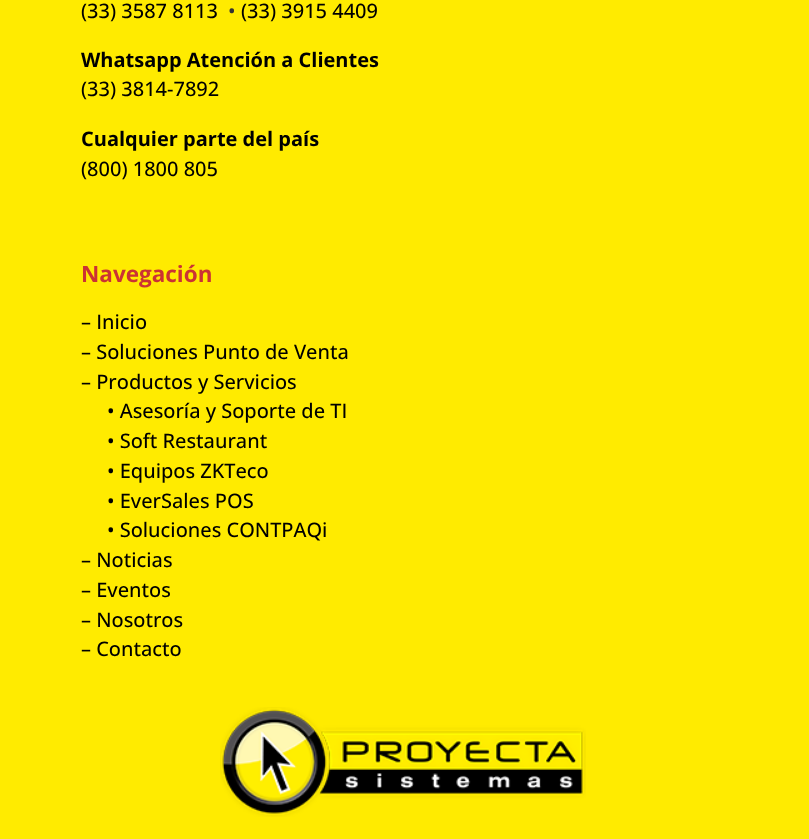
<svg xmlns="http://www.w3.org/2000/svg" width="809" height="839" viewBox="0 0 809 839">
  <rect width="100%" height="100%" fill="#ffeb00"/>
  <text x="81" y="18" font-family="Open Sans" font-size="20" font-weight="500" fill="#000000">(33) 3587 8113</text>
  <text x="228" y="18" font-family="Open Sans" font-size="20" font-weight="500" fill="#333333">•</text>
  <text x="241" y="18" font-family="Open Sans" font-size="20" font-weight="500" fill="#000000">(33) 3915 4409</text>
  <text x="81" y="67" font-family="Open Sans" font-size="20" font-weight="bold" fill="#000000">Whatsapp Atención a Clientes</text>
  <text x="81" y="96" font-family="Open Sans" font-size="20" font-weight="500" fill="#000000">(33) 3814-7892</text>
  <text x="81" y="146" font-family="Open Sans" font-size="20" font-weight="bold" fill="#000000">Cualquier parte del país</text>
  <text x="81" y="176" font-family="Open Sans" font-size="20" font-weight="500" fill="#000000">(800) 1800 805</text>
  <text x="81" y="282" font-family="Open Sans" font-size="22.5" font-weight="bold" fill="#cb3234">Navegación</text>
  <text x="81" y="329" font-family="Open Sans" font-size="20" font-weight="500" fill="#000000">– Inicio</text>
  <text x="81" y="359" font-family="Open Sans" font-size="20" font-weight="500" fill="#000000">– Soluciones Punto de Venta</text>
  <text x="81" y="389" font-family="Open Sans" font-size="20" font-weight="500" fill="#000000">– Productos y Servicios</text>
  <text x="107" y="418" font-family="Open Sans" font-size="20" font-weight="500" fill="#000000">• Asesoría y Soporte de TI</text>
  <text x="107" y="448" font-family="Open Sans" font-size="20" font-weight="500" fill="#000000">• Soft Restaurant</text>
  <text x="107" y="478" font-family="Open Sans" font-size="20" font-weight="500" fill="#000000">• Equipos ZKTeco</text>
  <text x="107" y="508" font-family="Open Sans" font-size="20" font-weight="500" fill="#000000">• EverSales POS</text>
  <text x="107" y="537" font-family="Open Sans" font-size="20" font-weight="500" fill="#000000">• Soluciones CONTPAQi</text>
  <text x="81" y="567" font-family="Open Sans" font-size="20" font-weight="500" fill="#000000">– Noticias</text>
  <text x="81" y="597" font-family="Open Sans" font-size="20" font-weight="500" fill="#000000">– Eventos</text>
  <text x="81" y="627" font-family="Open Sans" font-size="20" font-weight="500" fill="#000000">– Nosotros</text>
  <text x="81" y="656" font-family="Open Sans" font-size="20" font-weight="500" fill="#000000">– Contacto</text>
  <image x="220" y="707" width="366" height="110" href="img1.png"/>
</svg>
